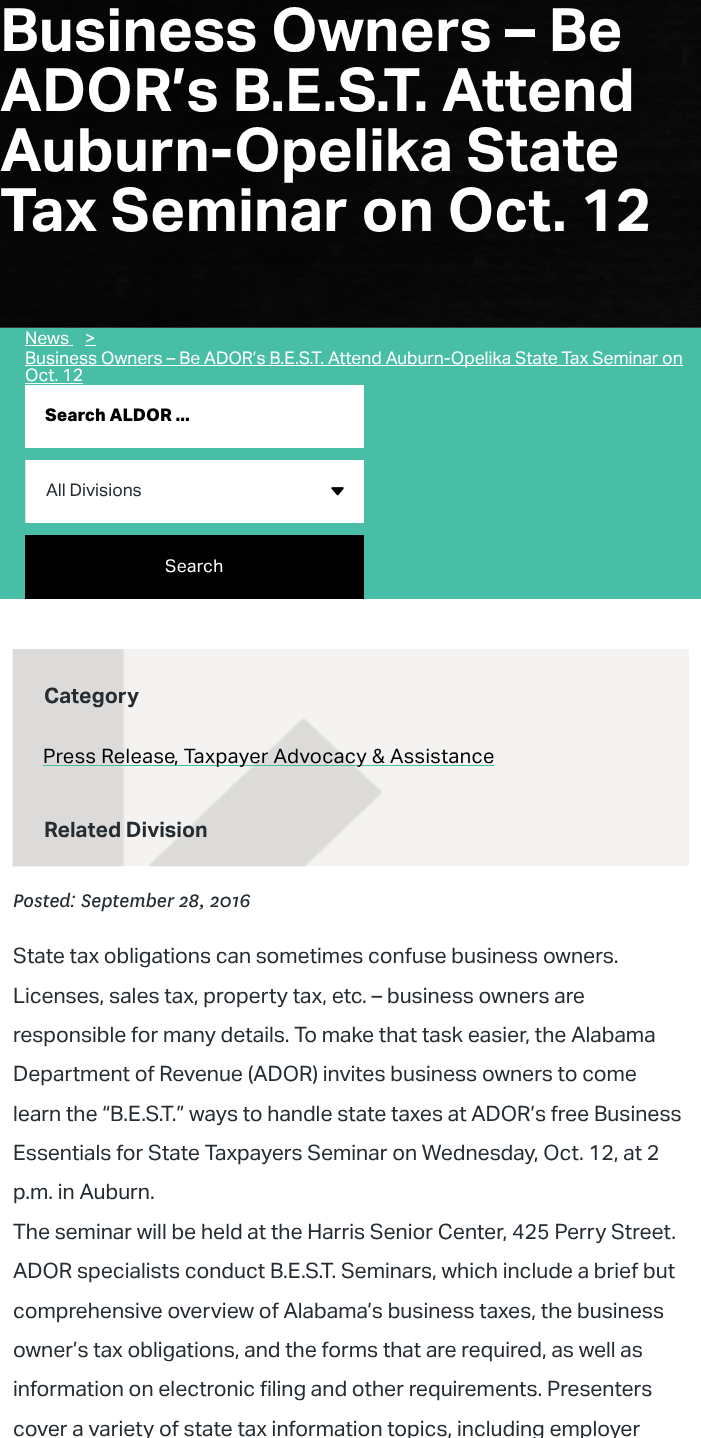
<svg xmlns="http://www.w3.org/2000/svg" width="701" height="1438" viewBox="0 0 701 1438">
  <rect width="100%" height="100%" fill="#ffffff"/>
  <image x="0" y="0" width="701" height="328" href="img1.png"/>
  <image x="0" y="0" width="701" height="328" href="img2.png"/>
  <text x="0" y="51" font-family="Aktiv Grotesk" font-size="60" font-weight="bold" fill="#ffffff">Business Owners – Be</text>
  <text x="0" y="111" font-family="Aktiv Grotesk" font-size="60" font-weight="bold" fill="#ffffff">ADOR’s B.E.S.T. Attend</text>
  <text x="0" y="171" font-family="Aktiv Grotesk" font-size="60" font-weight="bold" fill="#ffffff">Auburn-Opelika State</text>
  <text x="0" y="231" font-family="Aktiv Grotesk" font-size="60" font-weight="bold" fill="#ffffff">Tax Seminar on Oct. 12</text>
  <rect x="0" y="328" width="701" height="271" fill="#49bea6"/>
  <text x="25" y="344" font-family="Aktiv Grotesk" font-size="17.5" fill="#ffffff">News</text>
  <rect x="25" y="345" width="48" height="1" fill="#ffffff"/>
  <text x="85" y="344" font-family="Aktiv Grotesk" font-size="17.5" fill="#ffffff">&gt;</text>
  <rect x="85" y="345" width="11" height="1" fill="#ffffff"/>
  <rect x="25" y="365" width="658" height="1" fill="#ffffff"/>
  <text x="25" y="364" font-family="Aktiv Grotesk" font-size="17.5" fill="#ffffff">Business Owners – Be ADOR’s B.E.S.T. Attend Auburn-Opelika State Tax Seminar on</text>
  <text x="25" y="381" font-family="Aktiv Grotesk" font-size="17.5" fill="#ffffff">Oct. 12</text>
  <rect x="25" y="383" width="58" height="1" fill="#ffffff"/>
  <rect x="25" y="385" width="339" height="63" fill="#ffffff"/>
  <text x="45" y="421" font-family="'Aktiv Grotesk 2'" font-size="17.5" font-weight="bold" fill="#000000">Search ALDOR ...</text>
  <rect x="26" y="460" width="338" height="63" fill="#ffffff"/>
  <rect x="25" y="460" width="1" height="63" fill="#e1e5eb"/>
  <text x="46" y="496" font-family="Aktiv Grotesk" font-size="17.5" fill="#252c32">All Divisions</text>
  <image x="331" y="487" width="13" height="9" href="img3.png"/>
  <rect x="25" y="535" width="339" height="64" fill="#000000"/>
  <text x="165" y="572" font-family="Aktiv Grotesk" font-size="17.5" letter-spacing="0.4" fill="#ffffff">Search</text>
  <rect x="13" y="649" width="676" height="217" fill="#f4f3f1"/>
  <image x="12" y="649" width="370" height="218" href="img4.png"/>
  <text x="44" y="703" font-family="Aktiv Grotesk" font-size="21.25" font-weight="bold" fill="#252c32">Category</text>
  <text x="43" y="763" font-family="Aktiv Grotesk" font-size="20" letter-spacing="0.4" fill="#000000">Press Release</text>
  <rect x="43" y="765" width="451" height="1" fill="#49bea6"/>
  <text x="174" y="763" font-family="Aktiv Grotesk" font-size="20" letter-spacing="0.4" fill="#000000">, Taxpayer Advocacy &amp; Assistance</text>
  <text x="44" y="837" font-family="Aktiv Grotesk" font-size="21.25" font-weight="bold" fill="#252c32">Related Division</text>
  <text x="13" y="907" font-family="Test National" font-size="21.25" font-style="italic" fill="#252c32">Posted</text>
  <text x="70" y="907" font-family="Liberation Sans" font-size="21.25" font-style="italic" fill="#252c32">:</text>
  <text x="81" y="907" font-family="Test National" font-size="21.25" font-style="italic" fill="#252c32">September 28, 2016</text>
  <text x="13" y="963" font-family="Aktiv Grotesk" font-size="21.25" fill="#252c32">State tax obligations can sometimes confuse business owners.</text>
  <text x="13" y="1003" font-family="Aktiv Grotesk" font-size="21.25" fill="#252c32">Licenses, sales tax, property tax, etc. – business owners are</text>
  <text x="13" y="1042" font-family="Aktiv Grotesk" font-size="21.25" fill="#252c32">responsible for many details. To make that task easier, the Alabama</text>
  <text x="13" y="1081" font-family="Aktiv Grotesk" font-size="21.25" fill="#252c32">Department of Revenue (ADOR) invites business owners to come</text>
  <text x="13" y="1121" font-family="Aktiv Grotesk" font-size="21.25" fill="#252c32">learn the “B.E.S.T.” ways to handle state taxes at ADOR’s free Business</text>
  <text x="13" y="1160" font-family="Aktiv Grotesk" font-size="21.25" fill="#252c32">Essentials for State Taxpayers Seminar on Wednesday, Oct. 12, at 2</text>
  <text x="13" y="1199" font-family="Aktiv Grotesk" font-size="21.25" fill="#252c32">p.m. in Auburn.</text>
  <text x="13" y="1239" font-family="Aktiv Grotesk" font-size="21.25" fill="#252c32">The seminar will be held at the Harris Senior Center, 425 Perry Street.</text>
  <text x="13" y="1278" font-family="Aktiv Grotesk" font-size="21.25" fill="#252c32">ADOR specialists conduct B.E.S.T. Seminars, which include a brief but</text>
  <text x="13" y="1318" font-family="Aktiv Grotesk" font-size="21.25" fill="#252c32">comprehensive overview of Alabama’s business taxes, the business</text>
  <text x="13" y="1357" font-family="Aktiv Grotesk" font-size="21.25" fill="#252c32">owner’s tax obligations, and the forms that are required, as well as</text>
  <text x="13" y="1396" font-family="Aktiv Grotesk" font-size="21.25" fill="#252c32">information on electronic filing and other requirements. Presenters</text>
  <text x="13" y="1436" font-family="Aktiv Grotesk" font-size="21.25" fill="#252c32">cover a variety of state tax information topics, including employer</text>
</svg>
